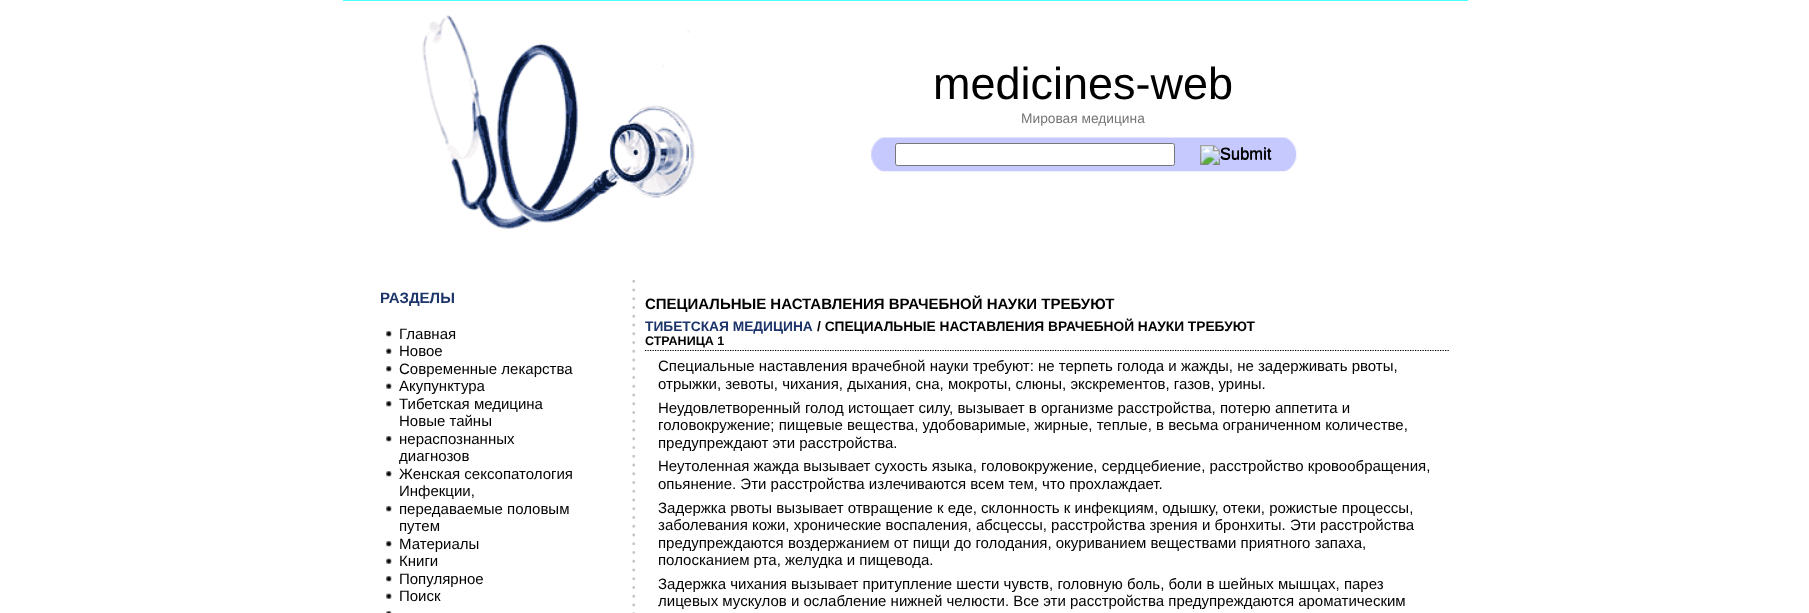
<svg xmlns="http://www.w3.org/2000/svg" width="1809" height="613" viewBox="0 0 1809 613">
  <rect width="100%" height="100%" fill="#ffffff"/>
  <rect x="343" y="0" width="1125" height="1" fill="#4affff"/>
  <image x="422" y="15" width="273" height="214" href="img1.png"/>
  <text x="933" y="99" font-family="Liberation Sans" font-size="45" fill="#000000">medicines-web</text>
  <text x="1021" y="123" font-family="Liberation Sans" font-size="13.75" fill="#767676">Мировая медицина</text>
  <image x="871" y="137" width="426" height="35" href="img2.png"/>
  <rect x="895.5" y="143.5" width="279" height="22" rx="2" fill="#ffffff" stroke="#767676"/>
  <image x="1200" y="145" width="72" height="20" href="img3.png"/>
  <text x="1220" y="159" font-family="Liberation Sans" font-size="16.5" fill="#000000">Submit</text>
  <text x="380" y="303" font-family="Liberation Sans" font-size="15" font-weight="bold" fill="#1c3469">РАЗДЕЛЫ</text>
  <image x="386" y="331" width="6" height="6" href="img4.png"/>
  <text x="399" y="339" font-family="Liberation Sans" font-size="15" fill="#000000">Главная</text>
  <image x="386" y="348" width="6" height="6" href="img5.png"/>
  <text x="399" y="356" font-family="Liberation Sans" font-size="15" fill="#000000">Новое</text>
  <image x="386" y="366" width="6" height="6" href="img4.png"/>
  <text x="399" y="374" font-family="Liberation Sans" font-size="15" fill="#000000">Современные лекарства</text>
  <image x="386" y="383" width="6" height="6" href="img5.png"/>
  <text x="399" y="391" font-family="Liberation Sans" font-size="15" fill="#000000">Акупунктура</text>
  <image x="386" y="401" width="6" height="6" href="img4.png"/>
  <text x="399" y="409" font-family="Liberation Sans" font-size="15" fill="#000000">Тибетская медицина</text>
  <image x="386" y="436" width="6" height="6" href="img4.png"/>
  <text x="399" y="426" font-family="Liberation Sans" font-size="15" fill="#000000">Новые тайны</text>
  <text x="399" y="444" font-family="Liberation Sans" font-size="15" fill="#000000">нераспознанных</text>
  <text x="399" y="461" font-family="Liberation Sans" font-size="15" fill="#000000">диагнозов</text>
  <image x="386" y="471" width="6" height="6" href="img4.png"/>
  <text x="399" y="479" font-family="Liberation Sans" font-size="15" fill="#000000">Женская сексопатология</text>
  <image x="386" y="506" width="6" height="6" href="img4.png"/>
  <text x="399" y="496" font-family="Liberation Sans" font-size="15" fill="#000000">Инфекции,</text>
  <text x="399" y="514" font-family="Liberation Sans" font-size="15" fill="#000000">передаваемые половым</text>
  <text x="399" y="531" font-family="Liberation Sans" font-size="15" fill="#000000">путем</text>
  <image x="386" y="541" width="6" height="6" href="img4.png"/>
  <text x="399" y="549" font-family="Liberation Sans" font-size="15" fill="#000000">Материалы</text>
  <image x="386" y="558" width="6" height="6" href="img5.png"/>
  <text x="399" y="566" font-family="Liberation Sans" font-size="15" fill="#000000">Книги</text>
  <image x="386" y="576" width="6" height="6" href="img4.png"/>
  <text x="399" y="584" font-family="Liberation Sans" font-size="15" fill="#000000">Популярное</text>
  <image x="386" y="593" width="6" height="6" href="img5.png"/>
  <text x="399" y="601" font-family="Liberation Sans" font-size="15" fill="#000000">Поиск</text>
  <image x="386" y="611" width="6" height="2" href="img6.png"/>
  <image x="632" y="279" width="3" height="334" href="img7.png"/>
  <path d="M645 350.5H1449" fill="none" stroke="#000000" stroke-width="1.2" stroke-dasharray="1.25 1.25"/>
  <text x="645" y="309" font-family="Liberation Sans" font-size="15" font-weight="bold" fill="#000000">СПЕЦИАЛЬНЫЕ НАСТАВЛЕНИЯ ВРАЧЕБНОЙ НАУКИ ТРЕБУЮТ</text>
  <text x="645" y="331" font-family="Liberation Sans" font-size="13.75" font-weight="bold" fill="#1c3469">ТИБЕТСКАЯ МЕДИЦИНА</text>
  <text x="817" y="331" font-family="Liberation Sans" font-size="13.75" font-weight="bold" fill="#000000">/ СПЕЦИАЛЬНЫЕ НАСТАВЛЕНИЯ ВРАЧЕБНОЙ НАУКИ ТРЕБУЮТ</text>
  <text x="645" y="345" font-family="Liberation Sans" font-size="12.5" font-weight="bold" fill="#000000">СТРАНИЦА 1</text>
  <text x="658" y="371" font-family="Liberation Sans" font-size="15" fill="#000000">Специальные наставления врачебной науки требуют: не терпеть голода и жажды, не задерживать рвоты,</text>
  <text x="658" y="389" font-family="Liberation Sans" font-size="15" fill="#000000">отрыжки, зевоты, чихания, дыхания, сна, мокроты, слюны, экскрементов, газов, урины.</text>
  <text x="658" y="413" font-family="Liberation Sans" font-size="15" fill="#000000">Неудовлетворенный голод истощает силу, вызывает в организме расстройства, потерю аппетита и</text>
  <text x="658" y="430" font-family="Liberation Sans" font-size="15" fill="#000000">головокружение; пищевые вещества, удобоваримые, жирные, теплые, в весьма ограниченном количестве,</text>
  <text x="658" y="448" font-family="Liberation Sans" font-size="15" fill="#000000">предупреждают эти расстройства.</text>
  <text x="658" y="471" font-family="Liberation Sans" font-size="15" fill="#000000">Неутоленная жажда вызывает сухость языка, головокружение, сердцебиение, расстройство кровообращения,</text>
  <text x="658" y="489" font-family="Liberation Sans" font-size="15" fill="#000000">опьянение. Эти расстройства излечиваются всем тем, что прохлаждает.</text>
  <text x="658" y="513" font-family="Liberation Sans" font-size="15" fill="#000000">Задержка рвоты вызывает отвращение к еде, склонность к инфекциям, одышку, отеки, рожистые процессы,</text>
  <text x="658" y="530" font-family="Liberation Sans" font-size="15" fill="#000000">заболевания кожи, хронические воспаления, абсцессы, расстройства зрения и бронхиты. Эти расстройства</text>
  <text x="658" y="548" font-family="Liberation Sans" font-size="15" fill="#000000">предупреждаются воздержанием от пищи до голодания, окуриванием веществами приятного запаха,</text>
  <text x="658" y="565" font-family="Liberation Sans" font-size="15" fill="#000000">полосканием рта, желудка и пищевода.</text>
  <text x="658" y="589" font-family="Liberation Sans" font-size="15" fill="#000000">Задержка чихания вызывает притупление шести чувств, головную боль, боли в шейных мышцах, парез</text>
  <text x="658" y="606" font-family="Liberation Sans" font-size="15" fill="#000000">лицевых мускулов и ослабление нижней челюсти. Все эти расстройства предупреждаются ароматическим</text>
</svg>
